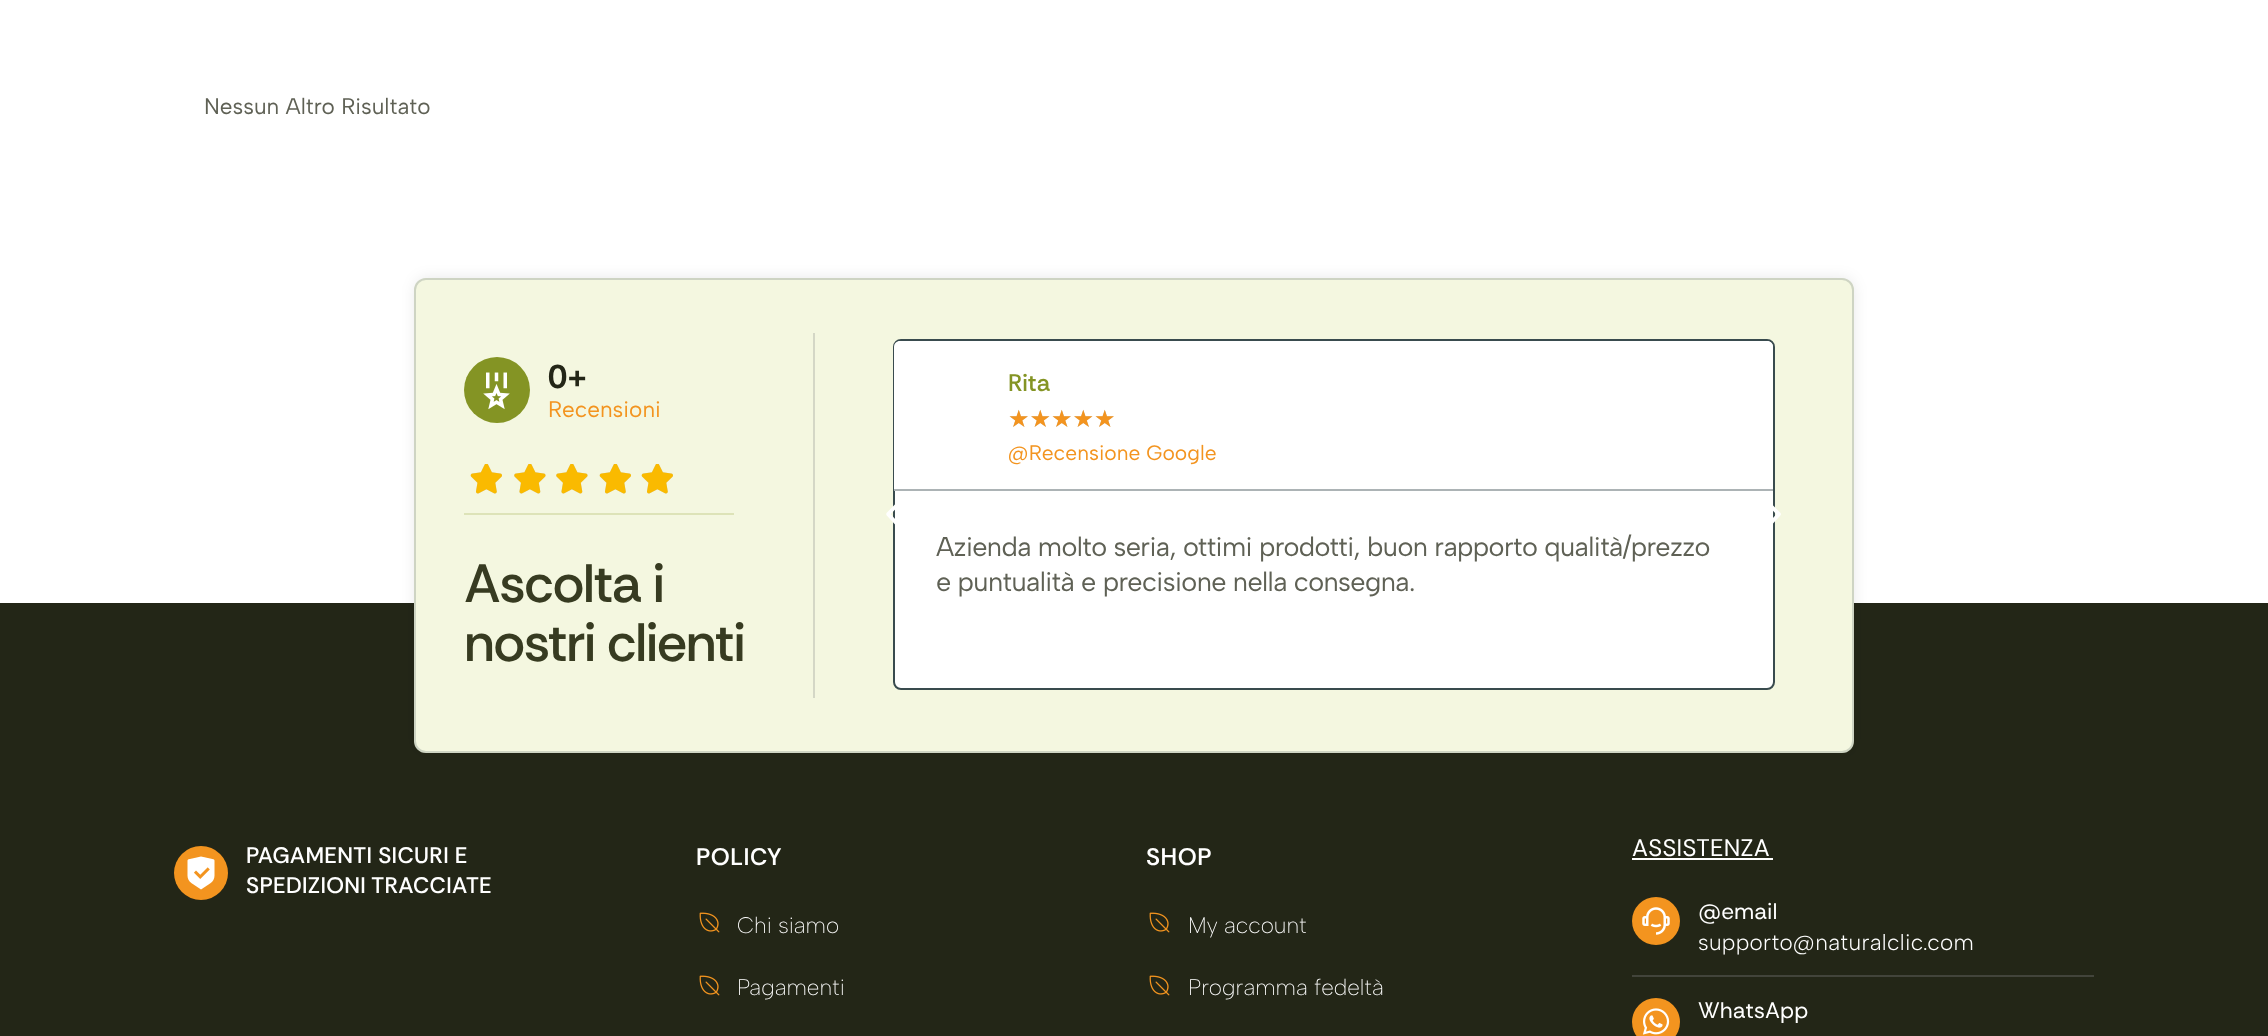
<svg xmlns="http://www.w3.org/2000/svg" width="2268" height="1036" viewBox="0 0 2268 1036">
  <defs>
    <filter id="blur1" x="-50%" y="-200%" width="200%" height="500%"><feGaussianBlur stdDeviation="7.5"/></filter>
  </defs>
  <rect width="100%" height="100%" fill="#ffffff"/>
  <text x="204" y="114" font-family="Albert Sans" font-size="22.5" fill="#5f6155">Nessun Altro Risultato</text>
  <rect x="0" y="603" width="2268" height="433" fill="#232617"/>
  <rect x="416" y="279" width="1437" height="473" rx="11" fill="#000000" fill-opacity="0.1" filter="url(#blur1)"/>
  <rect x="414" y="278" width="1440" height="475" rx="12" fill="#f4f7e0"/>
  <rect x="415" y="279" width="1438" height="473" rx="11" fill="none" stroke="#394b4e" stroke-opacity="0.2" stroke-width="2"/>
  <rect x="813" y="333" width="2" height="365" fill="#d4d7c6"/>
  <circle cx="497" cy="390" r="33" fill="#849424"/>
  <image x="483" y="372" width="27" height="38" href="img1.png"/>
  <text x="548" y="388" font-family="Rethink Sans" font-size="33" font-weight="bold" fill="#232617">0+</text>
  <text x="548" y="417" font-family="Albert Sans" font-size="22.5" fill="#f3941f">Recensioni</text>
  <image x="470" y="464" width="32" height="30" href="img2.png"/>
  <image x="470" y="464" width="32" height="30" href="img3.png"/>
  <image x="514" y="464" width="32" height="30" href="img4.png"/>
  <image x="514" y="464" width="32" height="30" href="img5.png"/>
  <image x="556" y="464" width="32" height="30" href="img4.png"/>
  <image x="556" y="464" width="32" height="30" href="img5.png"/>
  <image x="599" y="464" width="32" height="30" href="img2.png"/>
  <image x="599" y="464" width="32" height="30" href="img3.png"/>
  <image x="641" y="464" width="32" height="30" href="img2.png"/>
  <image x="641" y="464" width="32" height="30" href="img3.png"/>
  <rect x="464" y="513" width="270" height="2" fill="#dde3b8"/>
  <text x="464" y="602" font-family="Rethink Sans" font-size="54" font-weight="500" letter-spacing="-1.5" fill="#373b21">Ascolta i</text>
  <text x="464" y="661" font-family="Rethink Sans" font-size="54" font-weight="500" letter-spacing="-1.5" fill="#373b21">nostri clienti</text>
  <rect x="894" y="340" width="880" height="349" rx="7" fill="#ffffff" stroke="#394b4e" stroke-width="2"/>
  <image x="886" y="504" width="9" height="21" href="img6.png"/>
  <path d="M900 341H1767C1770.5 341 1773 343.5 1773 347V491H894V347C894 343.5 896.5 341 900 341Z" fill="#ffffff"/>
  <rect x="894" y="489" width="879" height="2" fill="#acb3b5"/>
  <text x="1008" y="391" font-family="Rethink Sans" font-size="24" font-weight="500" fill="#849424">Rita</text>
  <text x="1008" y="427" font-family="DejaVu Sans" font-size="24" fill="#ccd6df">★★★★★</text>
  <text x="1008" y="427" font-family="DejaVu Sans" font-size="24" fill="#f3941f">★★★★★</text>
  <text x="1008" y="460" font-family="Albert Sans" font-size="21" fill="#f3941f">@Recensione Google</text>
  <text x="936" y="556" font-family="Albert Sans" font-size="27" letter-spacing="-0.6" fill="#5f6155">Azienda molto seria, ottimi prodotti, buon rapporto qualità/prezzo</text>
  <text x="936" y="591" font-family="Albert Sans" font-size="27" letter-spacing="-0.6" fill="#5f6155">e puntualità e precisione nella consegna.</text>
  <image x="1773" y="505" width="8" height="19" href="img7.png"/>
  <circle cx="201" cy="873" r="27" fill="#f3941f"/>
  <image x="187" y="856" width="28" height="34" href="img8.png"/>
  <text x="246" y="863" font-family="Rethink Sans" font-size="22.5" font-weight="500" letter-spacing="0.3" fill="#ffffff">PAGAMENTI SICURI E</text>
  <text x="246" y="893" font-family="Rethink Sans" font-size="22.5" font-weight="500" letter-spacing="0.3" fill="#ffffff">SPEDIZIONI TRACCIATE</text>
  <text x="696" y="865" font-family="Rethink Sans" font-size="24" font-weight="600" letter-spacing="0.5" fill="#ffffff">POLICY</text>
  <image x="699" y="912" width="21" height="21" href="img9.png"/>
  <text x="737" y="933" font-family="Albert Sans" font-size="22.5" font-weight="200" fill="#ffffff">Chi siamo</text>
  <image x="699" y="975" width="21" height="21" href="img9.png"/>
  <text x="737" y="995" font-family="Albert Sans" font-size="22.5" font-weight="200" fill="#ffffff">Pagamenti</text>
  <text x="1146" y="865" font-family="Rethink Sans" font-size="24" font-weight="600" letter-spacing="0.5" fill="#ffffff">SHOP</text>
  <image x="1149" y="912" width="21" height="21" href="img9.png"/>
  <text x="1188" y="933" font-family="Albert Sans" font-size="22.5" font-weight="200" fill="#ffffff">My account</text>
  <image x="1149" y="975" width="21" height="21" href="img9.png"/>
  <text x="1188" y="995" font-family="Albert Sans" font-size="22.5" font-weight="200" fill="#ffffff">Programma fedeltà</text>
  <rect x="1632" y="858" width="141" height="2" fill="#ffffff"/>
  <text x="1632" y="856" font-family="Rethink Sans" font-size="24" letter-spacing="0.3" fill="#ffffff">ASSISTENZA</text>
  <circle cx="1656" cy="921" r="24" fill="#f3941f"/>
  <image x="1642" y="907" width="28" height="28" href="img10.png"/>
  <text x="1698" y="919" font-family="Rethink Sans" font-size="22.5" fill="#ffffff">@email</text>
  <text x="1698" y="950" font-family="Albert Sans" font-size="22.5" font-weight="300" letter-spacing="0.3" fill="#ffffff">supporto@naturalclic.com</text>
  <rect x="1632" y="975" width="462" height="2" fill="#42443b"/>
  <circle cx="1656" cy="1022" r="24" fill="#f3941f"/>
  <image x="1642" y="1008" width="28" height="27" href="img11.png"/>
  <text x="1698" y="1018" font-family="Rethink Sans" font-size="22.5" fill="#ffffff">WhatsApp</text>
</svg>
